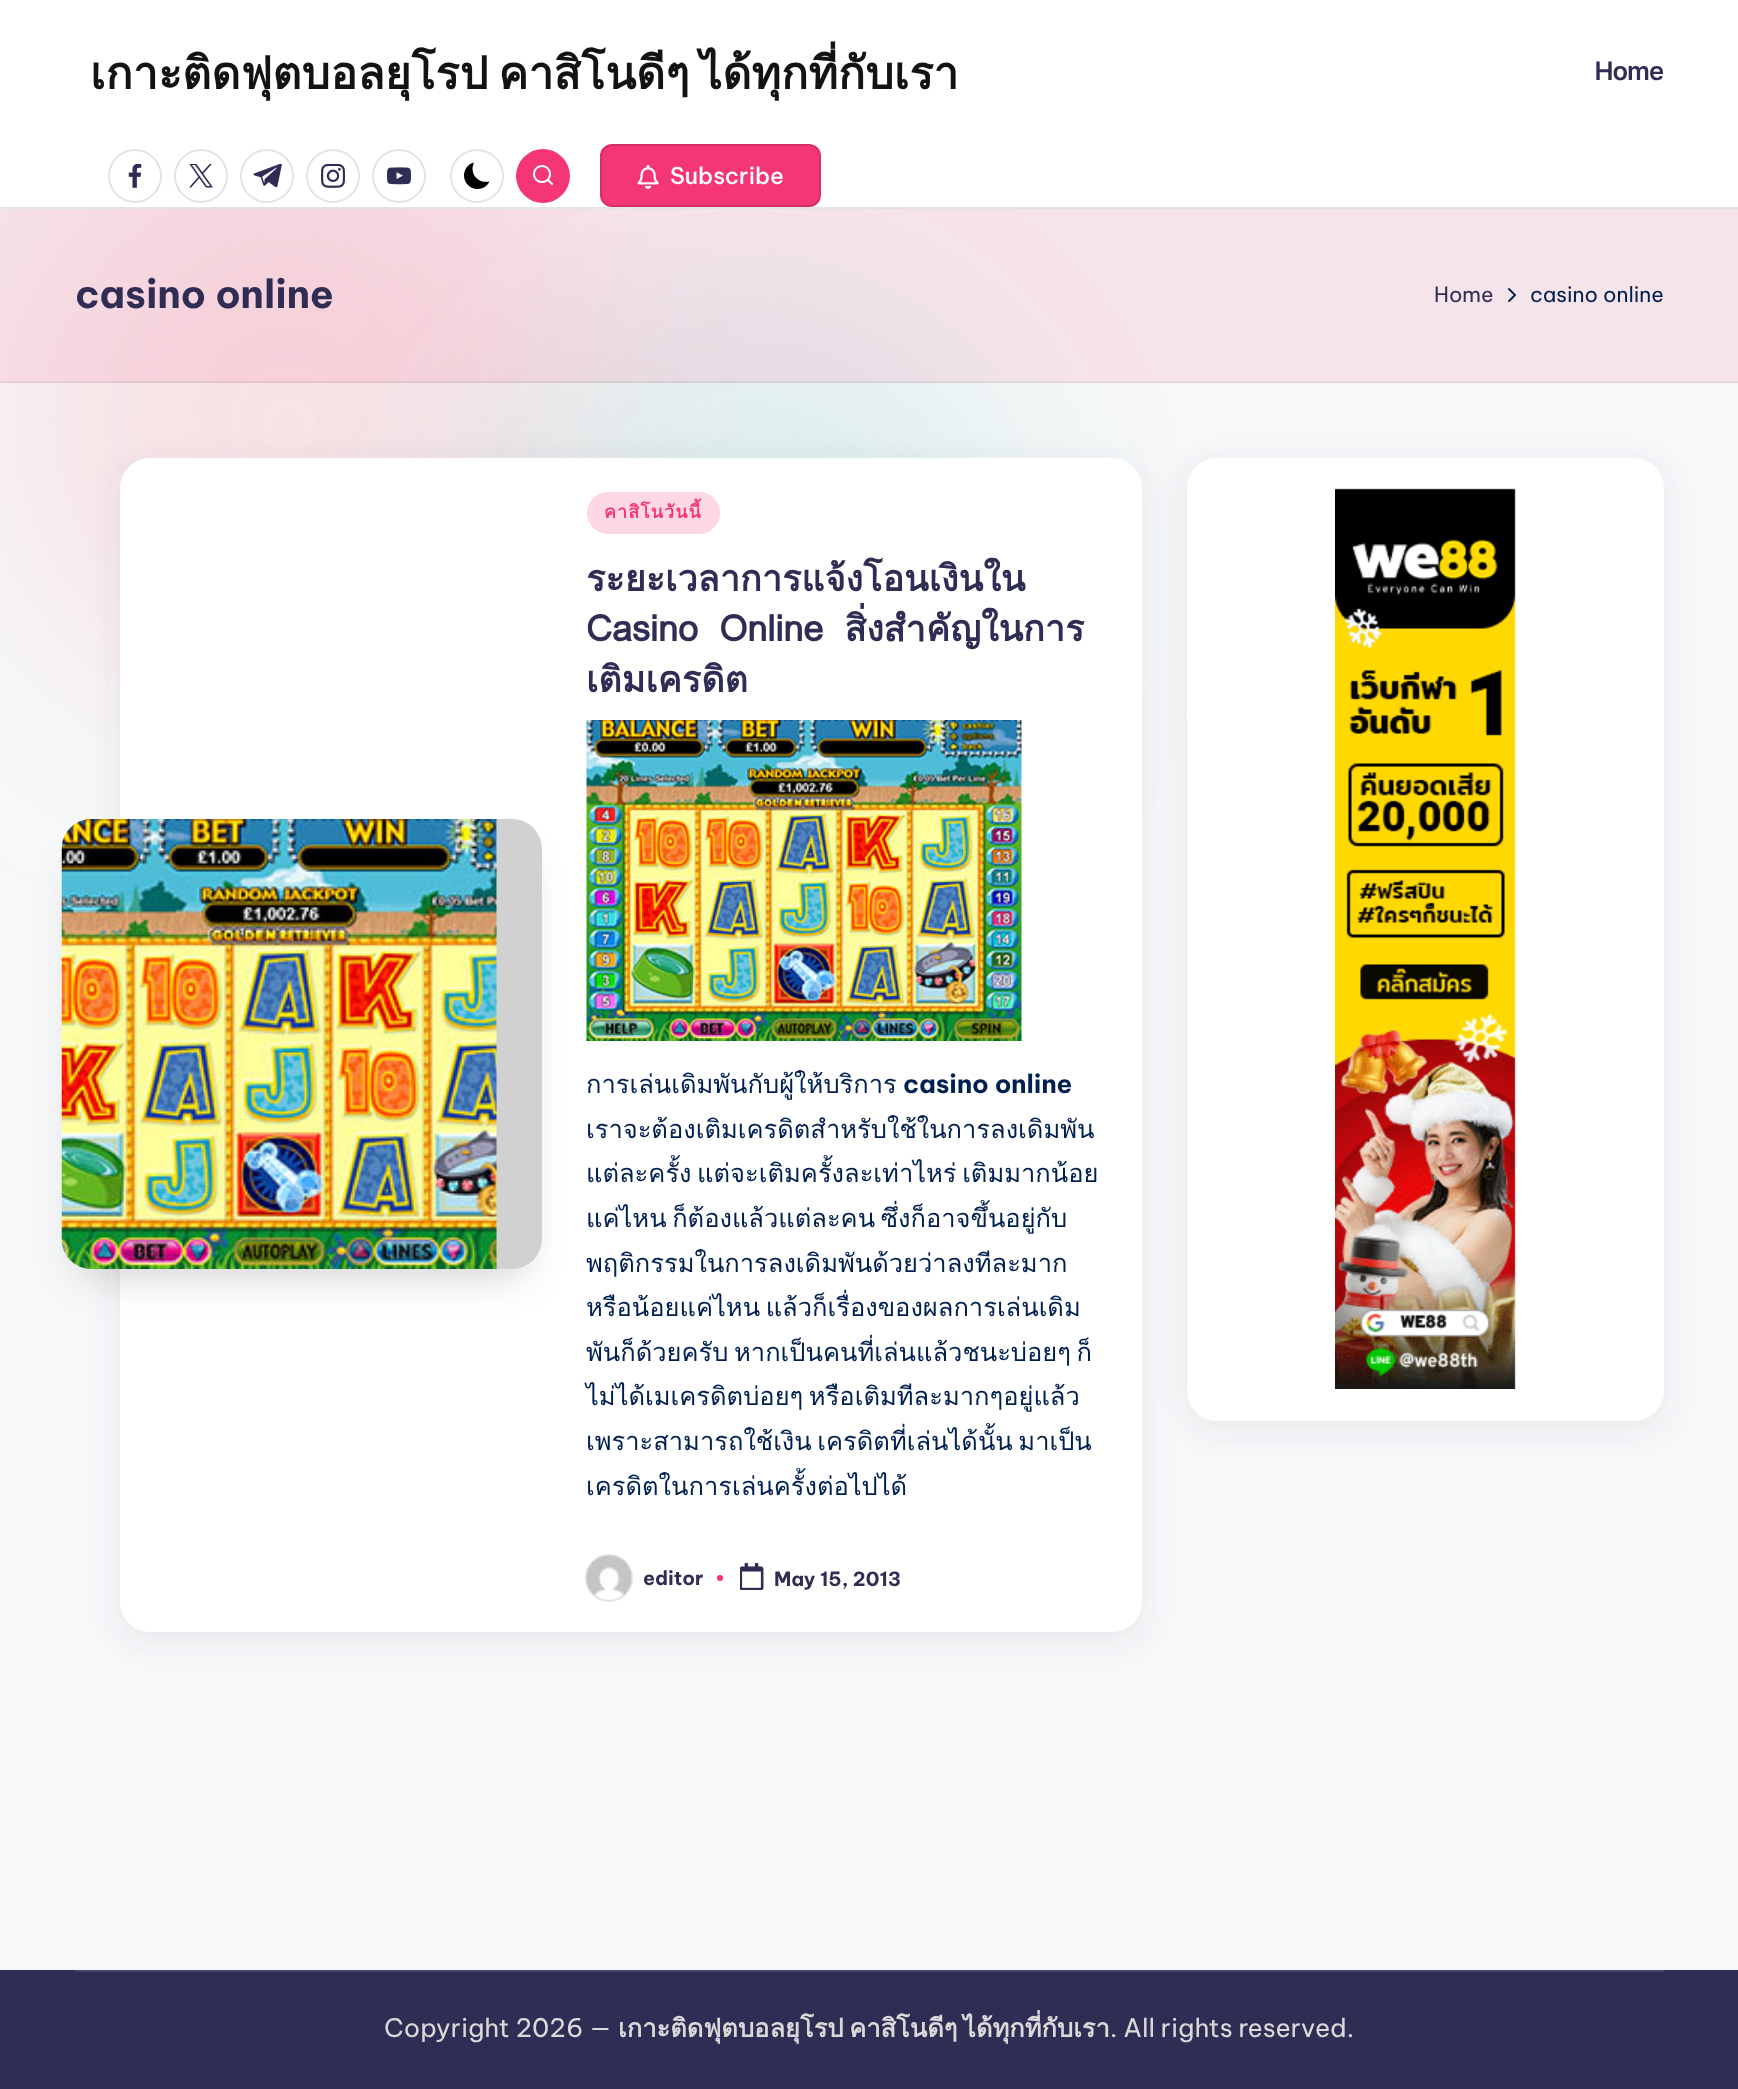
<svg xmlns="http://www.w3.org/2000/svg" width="1738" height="2089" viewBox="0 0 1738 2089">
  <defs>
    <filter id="blur1" x="-50%" y="-200%" width="200%" height="500%"><feGaussianBlur stdDeviation="96"/></filter>
    <filter id="blur2" x="-50%" y="-200%" width="200%" height="500%"><feGaussianBlur stdDeviation="15"/></filter>
    <filter id="blur3" x="-50%" y="-200%" width="200%" height="500%"><feGaussianBlur stdDeviation="21"/></filter>
  </defs>
  <rect width="100%" height="100%" fill="#f7f8f9"/>
  <rect x="0" y="135" width="576" height="576" rx="288" fill="#f7e3e6" filter="url(#blur1)"/>
  <rect x="456" y="300" width="576" height="576" rx="288" fill="#04868b" fill-opacity="0.1" filter="url(#blur1)"/>
  <rect x="0" y="0" width="1738" height="207" fill="#ffffff"/>
  <rect x="0" y="207" width="1738" height="2" fill="#e3e3e3"/>
  <text x="90" y="89" word-spacing="-5" font-family="Loma" font-size="45" font-weight="bold" fill="#131315">เกาะติดฟุตบอลยุโรป คาสิโนดีๆ ได้ทุกที่กับเรา</text>
  <text x="1595" y="80" font-family="Inter Tight" font-size="25.5" font-weight="600" fill="#302d55">Home</text>
  <circle cx="135" cy="176" r="26" fill="none" stroke="#e3e3e3" stroke-width="2"/>
  <image x="128" y="164" width="14" height="24" href="img1.png"/>
  <circle cx="201" cy="176" r="26" fill="none" stroke="#e3e3e3" stroke-width="2"/>
  <image x="189" y="164" width="24" height="24" href="img2.png"/>
  <circle cx="267" cy="176" r="26" fill="none" stroke="#e3e3e3" stroke-width="2"/>
  <image x="253" y="164" width="29" height="24" href="img3.png"/>
  <circle cx="333" cy="176" r="26" fill="none" stroke="#e3e3e3" stroke-width="2"/>
  <image x="321" y="164" width="24" height="24" href="img4.png"/>
  <circle cx="399" cy="176" r="26" fill="none" stroke="#e3e3e3" stroke-width="2"/>
  <image x="387" y="167" width="25" height="18" href="img5.png"/>
  <circle cx="477" cy="176" r="26" fill="none" stroke="#e3e3e3" stroke-width="2"/>
  <path d="M489.5 181.5C478 184 469 173.5 474 162.5C468 164 464 169.5 464 175.5C464 183 470 189 477.5 189C483 189 487.5 186 489.5 181.5Z" fill="#000000"/>
  <circle cx="543" cy="176" r="27" fill="#f43676"/>
  <image x="533" y="165" width="20" height="20" href="img6.png"/>
  <rect x="600" y="144" width="221" height="63" rx="12" fill="#f43676"/>
  <rect x="601" y="145" width="219" height="61" rx="11" fill="none" stroke="#000000" stroke-opacity="0.12" stroke-width="2"/>
  <image x="637" y="164" width="22" height="25" href="img7.png"/>
  <text x="670" y="184" font-family="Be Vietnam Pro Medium" font-size="23" font-weight="500" fill="#ffffff">Subscribe</text>
  <rect x="0" y="209" width="1738" height="174" fill="#f43676" fill-opacity="0.1"/>
  <rect x="0" y="381" width="1738" height="2" fill="#000000" fill-opacity="0.06"/>
  <text x="75" y="308" font-family="Be Vietnam Pro" font-size="39" font-weight="bold" fill="#302d55">casino online</text>
  <text x="1434" y="302" font-family="Be Vietnam Pro" font-size="21" fill="#302d55">Home</text>
  <image x="1508" y="288" width="8" height="14" href="img8.png"/>
  <text x="1530" y="302" font-family="Be Vietnam Pro" font-size="21" fill="#002050">casino online</text>
  <rect x="120" y="465" width="1022" height="1175" rx="30" fill="#454360" fill-opacity="0.1" filter="url(#blur2)"/>
  <rect x="120" y="458" width="1022" height="1174" rx="30" fill="#ffffff"/>
  <image x="586" y="720" width="436" height="321" href="img10.png"/>
  <rect x="80" y="861" width="444" height="414" rx="12" fill="#000000" fill-opacity="0.18" filter="url(#blur3)"/>
  <rect x="62" y="819" width="480" height="450" rx="30" fill="#d1d1d1"/>
  <path d="M92 819H497V1269H92C75.5 1269 62 1255.5 62 1239V849C62 832.5 75.5 819 92 819Z" fill="#d1d1d1"/>
  <image x="61" y="819" width="436" height="450" href="img9.png"/>
  <rect x="587" y="492" width="133" height="42" rx="21" fill="#fdd7e4"/>
  <text x="604" y="518" font-family="Loma" font-size="18" font-weight="bold" letter-spacing="1" fill="#f43676">คาสิโนวันนี้</text>
  <text x="586" y="591" font-family="Loma" font-size="36" font-weight="bold" fill="#302d55">ระยะเวลาการแจ้งโอนเงินใน</text>
  <text x="586" y="641" word-spacing="9" font-family="Loma" font-size="36" font-weight="bold" fill="#302d55">Casino Online สิ่งสำคัญในการ</text>
  <text x="586" y="692" font-family="Loma" font-size="36" font-weight="bold" fill="#302d55">เติมเครดิต</text>
  <text x="586" y="1093" font-family="Loma" font-size="25.5" fill="#002050">การเล่นเดิมพันกับผู้ให้บริการ</text>
  <text x="903" y="1093" font-family="Be Vietnam Pro" font-size="25.5" font-weight="bold" fill="#002050">casino online</text>
  <text x="586" y="1138" font-family="Loma" font-size="25.5" fill="#002050">เราจะต้องเติมเครดิตสำหรับใช้ในการลงเดิมพัน</text>
  <text x="586" y="1182" word-spacing="-3" font-family="Loma" font-size="25.5" fill="#002050">แต่ละครั้ง แต่จะเติมครั้งละเท่าไหร่ เติมมากน้อย</text>
  <text x="586" y="1227" word-spacing="-3" font-family="Loma" font-size="25.5" fill="#002050">แค่ไหน ก็ต้องแล้วแต่ละคน ซึ่งก็อาจขึ้นอยู่กับ</text>
  <text x="586" y="1272" font-family="Loma" font-size="25.5" fill="#002050">พฤติกรรมในการลงเดิมพันด้วยว่าลงทีละมาก</text>
  <text x="586" y="1316" word-spacing="-3" font-family="Loma" font-size="25.5" fill="#002050">หรือน้อยแค่ไหน แล้วก็เรื่องของผลการเล่นเดิม</text>
  <text x="586" y="1361" word-spacing="-3" font-family="Loma" font-size="25.5" fill="#002050">พันก็ด้วยครับ หากเป็นคนที่เล่นแล้วชนะบ่อยๆ ก็</text>
  <text x="586" y="1405" word-spacing="-3" font-family="Loma" font-size="25.5" fill="#002050">ไม่ได้เมเครดิตบ่อยๆ หรือเติมทีละมากๆอยู่แล้ว</text>
  <text x="586" y="1450" word-spacing="-3" font-family="Loma" font-size="25.5" fill="#002050">เพราะสามารถใช้เงิน เครดิตที่เล่นได้นั้น มาเป็น</text>
  <text x="586" y="1495" font-family="Loma" font-size="25.5" fill="#002050">เครดิตในการเล่นครั้งต่อไปได้</text>
  <image x="586" y="1555" width="46" height="41" href="img11.png"/>
  <circle cx="609" cy="1578" r="23" fill="none" stroke="#b9b9b9" stroke-opacity="0.4" stroke-width="2"/>
  <text x="643" y="1585" font-family="Be Vietnam Pro" font-size="19.5" font-weight="bold" fill="#302d55">editor</text>
  <circle cx="720" cy="1578" r="3" fill="#f43676"/>
  <image x="740" y="1563" width="24" height="27" href="img12.png"/>
  <text x="774" y="1586" font-family="Be Vietnam Pro" font-size="19.5" font-weight="bold" fill="#302d55">May 15, 2013</text>
  <rect x="1187" y="465" width="477" height="963" rx="30" fill="#454360" fill-opacity="0.1" filter="url(#blur2)"/>
  <rect x="1187" y="458" width="477" height="963" rx="30" fill="#ffffff"/>
  <image x="1335" y="488" width="181" height="901" href="img13.png"/>
  <rect x="0" y="1970" width="1738" height="119" fill="#302d55"/>
  <rect x="75" y="1970" width="1589" height="2" fill="#454266"/>
  <text x="384" y="2037" font-family="Be Vietnam Pro" font-size="25.5" fill="#d9d9d9">Copyright 2026 —</text>
  <text x="618" y="2037" word-spacing="-3" font-family="Loma" font-size="25.5" font-weight="bold" fill="#d9d9d9">เกาะติดฟุตบอลยุโรป คาสิโนดีๆ ได้ทุกที่กับเรา</text>
  <text x="1110" y="2037" font-family="Be Vietnam Pro" font-size="25.5" fill="#d9d9d9">. All rights reserved.</text>
</svg>
